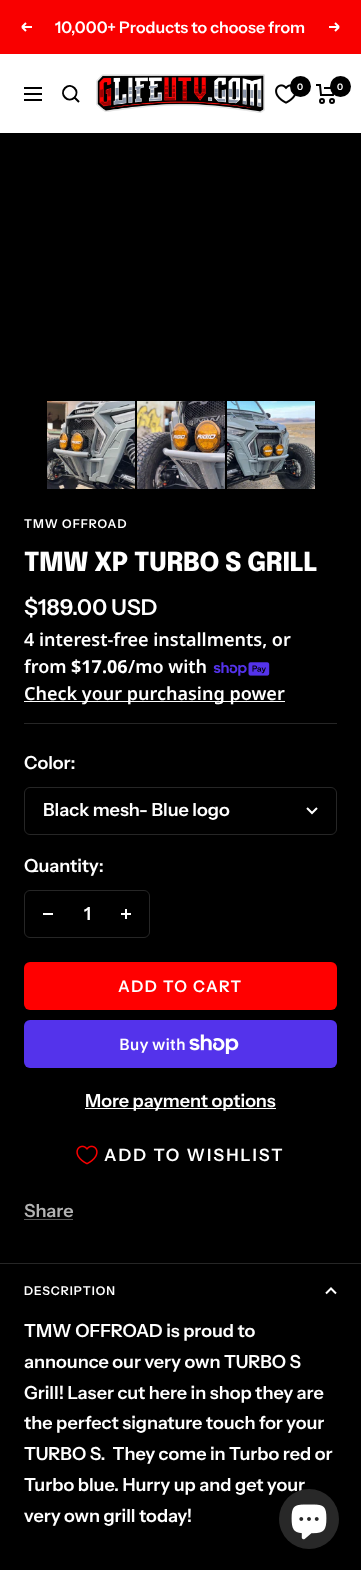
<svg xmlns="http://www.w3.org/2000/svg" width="361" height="1570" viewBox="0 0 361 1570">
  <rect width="100%" height="100%" fill="#000000"/>
  <rect x="0" y="0" width="361" height="54" fill="#f90000"/>
  <path d="M32 27H22M22 27L26 31M22 27L26 23" fill="none" stroke="#ffffff" stroke-width="2"/>
  <text x="55" y="33" font-family="Instrument Sans" font-size="16" font-weight="600" fill="#ffffff">10,000+ Products to choose from</text>
  <path d="M329 27H339M339 27L335 31M339 27L335 23" fill="none" stroke="#ffffff" stroke-width="2"/>
  <rect x="0" y="54" width="361" height="79" fill="#ffffff"/>
  <path d="M24 88H42M24 100H42ZM24 94H42ZM74.5 97.5C80.5 91 71.5 82 65 88C59 94.5 68 103.5 74.5 97.5ZM74.5 97.5L79 102" fill="none" stroke="#000000" stroke-width="2"/>
  <image x="96" y="74" width="169" height="39" href="img1.png"/>
  <image x="275" y="84" width="21" height="20" href="img2.png"/>
  <circle cx="300.5" cy="86.5" r="10.5" fill="#000000"/>
  <text x="297" y="90" font-family="Instrument Sans" font-size="9" font-weight="600" fill="#ffffff">0</text>
  <path d="M316 85H320L321 95H333L335 88H324" fill="none" stroke="#000000" stroke-width="2"/>
  <circle cx="322" cy="101" r="2" fill="none" stroke="#000000" stroke-width="2"/>
  <circle cx="332" cy="101" r="2" fill="none" stroke="#000000" stroke-width="2"/>
  <circle cx="340.5" cy="86.5" r="10.5" fill="#000000"/>
  <text x="337" y="90" font-family="Instrument Sans" font-size="9" font-weight="600" fill="#ffffff">0</text>
  <image x="47" y="401" width="88" height="88" href="img3.png"/>
  <image x="137" y="401" width="88" height="88" href="img4.png"/>
  <image x="227" y="401" width="88" height="88" href="img5.png"/>
  <rect x="24" y="723" width="313" height="1" fill="#262626"/>
  <text x="24" y="528" font-family="Instrument Sans" font-size="12" font-weight="600" letter-spacing="1" fill="#ffffff">TMW OFFROAD</text>
  <text x="24" y="571" font-family="Epilogue" font-size="26" font-weight="800" letter-spacing="-0.4" fill="#ffffff">TMW XP TURBO S GRILL</text>
  <text x="24" y="615" font-family="Instrument Sans" font-size="22" font-weight="600" fill="#ffffff">$189.00 USD</text>
  <text x="24" y="646" font-family="Noto Sans" font-size="18" font-weight="600" fill="#ffffff">4 interest-free installments, or</text>
  <text x="24" y="673" font-family="Noto Sans" font-size="18" font-weight="600" fill="#ffffff">from</text>
  <text x="71" y="673" font-family="Noto Sans" font-size="18" font-weight="bold" fill="#ffffff">$17.06</text>
  <text x="128" y="673" font-family="Noto Sans" font-size="18" font-weight="600" fill="#ffffff">/mo with</text>
  <image x="213" y="662" width="57" height="14" href="img6.png"/>
  <rect x="24" y="701" width="261" height="1" fill="#ffffff"/>
  <text x="24" y="700" font-family="Noto Sans" font-size="18" font-weight="600" fill="#ffffff">Check your purchasing power</text>
  <text x="24" y="769" font-family="Instrument Sans" font-size="18" font-weight="600" fill="#ffffff">Color:</text>
  <rect x="24.5" y="787.5" width="312" height="47" rx="5.5" fill="none" stroke="#262626"/>
  <text x="43" y="816" font-family="Instrument Sans" font-size="18" font-weight="600" fill="#ffffff">Black mesh- Blue logo</text>
  <path d="M307 808L312 813L317 808" fill="none" stroke="#ffffff" stroke-width="2"/>
  <text x="24" y="872" font-family="Instrument Sans" font-size="18" font-weight="600" fill="#ffffff">Quantity:</text>
  <rect x="24.5" y="890.5" width="125" height="47" rx="5.5" fill="none" stroke="#262626"/>
  <rect x="43" y="913" width="10" height="2" fill="#ffffff"/>
  <text x="84" y="920" font-family="Instrument Sans" font-size="18" font-weight="600" fill="#ffffff">1</text>
  <image x="121" y="909" width="10" height="10" href="img7.png"/>
  <rect x="24" y="962" width="313" height="48" rx="6" fill="#ff0000"/>
  <text x="118" y="992" font-family="Instrument Sans" font-size="16" font-weight="600" letter-spacing="1.5" fill="#ffffff">ADD TO CART</text>
  <rect x="24" y="1020" width="313" height="48" rx="6" fill="#5433eb"/>
  <text x="119" y="1050" font-family="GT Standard" font-size="16" font-weight="600" fill="#ffffff">Buy with</text>
  <image x="189" y="1034" width="50" height="20" href="img8.png"/>
  <rect x="85" y="1108" width="191" height="1" fill="#ffffff"/>
  <text x="85" y="1107" font-family="Instrument Sans" font-size="18" font-weight="600" fill="#ffffff">More payment options</text>
  <image x="76" y="1145" width="22" height="20" href="img9.png"/>
  <text x="104" y="1161" font-family="Instrument Sans" font-size="17" font-weight="600" letter-spacing="2" fill="#ffffff">ADD TO WISHLIST</text>
  <text x="24" y="1217" font-family="Instrument Sans" font-size="18" font-weight="600" fill="#b3b3b3">Share</text>
  <rect x="24" y="1219" width="49" height="1" fill="#595959"/>
  <rect x="0" y="1263" width="361" height="1" fill="#262626"/>
  <text x="24" y="1295" font-family="Instrument Sans" font-size="12" font-weight="600" letter-spacing="1" fill="#ffffff">DESCRIPTION</text>
  <path d="M336 1293.5L331 1288.5L326 1293.5" fill="none" stroke="#ffffff" stroke-width="2"/>
  <text x="24" y="1337" font-family="Instrument Sans" font-size="18" font-weight="600" fill="#ffffff">TMW OFFROAD is proud to</text>
  <text x="24" y="1368" font-family="Instrument Sans" font-size="18" font-weight="600" fill="#ffffff">announce our very own TURBO S</text>
  <text x="24" y="1399" font-family="Instrument Sans" font-size="18" font-weight="600" fill="#ffffff">Grill! Laser cut here in shop they are</text>
  <text x="24" y="1429" font-family="Instrument Sans" font-size="18" font-weight="600" fill="#ffffff">the perfect signature touch for your</text>
  <text x="24" y="1460" font-family="Instrument Sans" font-size="18" font-weight="600" fill="#ffffff" xml:space="preserve">TURBO S.  They come in Turbo red or</text>
  <text x="24" y="1491" font-family="Instrument Sans" font-size="18" font-weight="600" fill="#ffffff">Turbo blue. Hurry up and get your</text>
  <text x="24" y="1522" font-family="Instrument Sans" font-size="18" font-weight="600" fill="#ffffff">very own grill today!</text>
  <circle cx="309" cy="1519" r="30" fill="#282828"/>
  <image x="291" y="1504" width="36" height="36" href="img10.png"/>
</svg>
